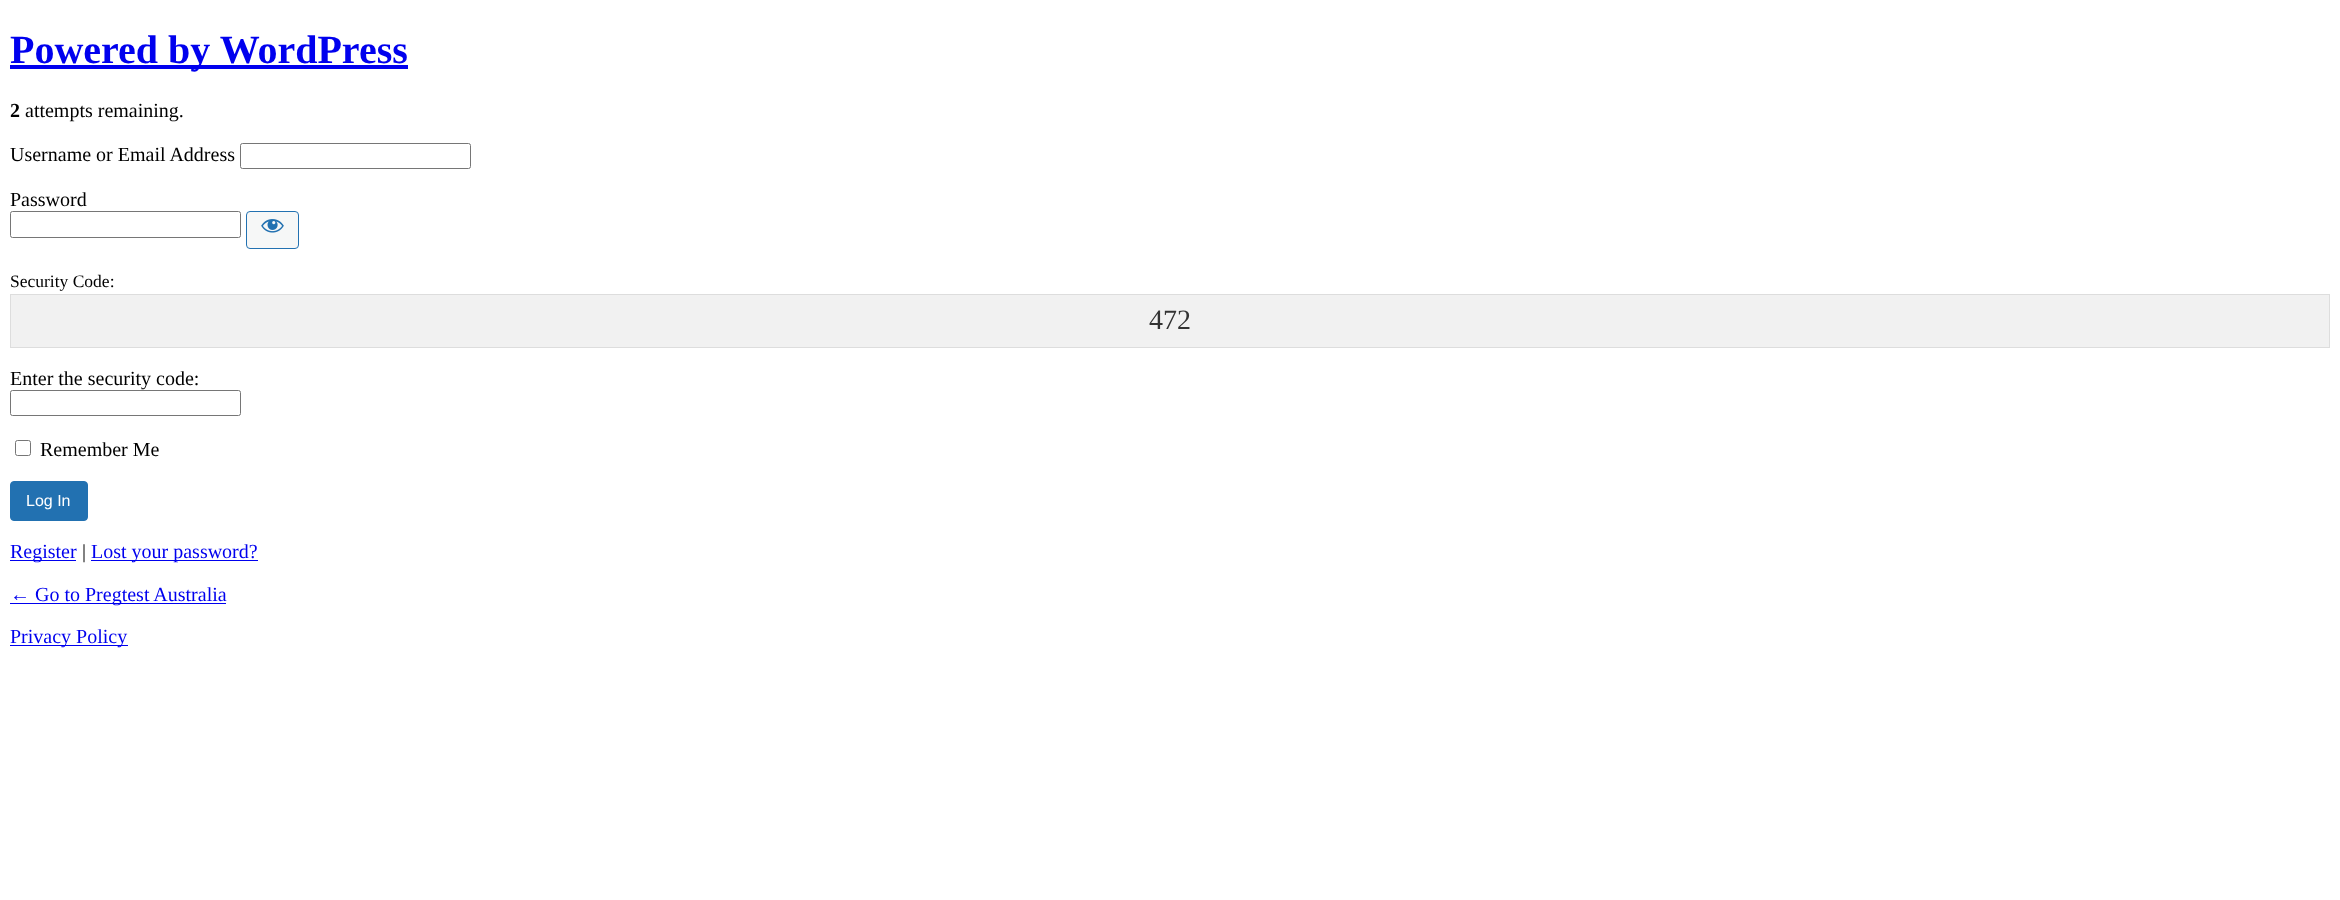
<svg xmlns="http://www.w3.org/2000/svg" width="2340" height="900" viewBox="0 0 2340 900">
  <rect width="100%" height="100%" fill="#ffffff"/>
  <rect x="10" y="65" width="398" height="4" fill="#0000ee"/>
  <text x="10" y="63" font-family="Liberation Serif" font-size="40" font-weight="bold" fill="#0000ee">Powered by WordPress</text>
  <text x="10" y="117" font-family="Liberation Serif" font-size="20" font-weight="bold" fill="#000000">2</text>
  <text x="25" y="117" font-family="Liberation Serif" font-size="20" fill="#000000">attempts remaining.</text>
  <text x="10" y="161" font-family="Liberation Serif" font-size="20" fill="#000000">Username or Email Address</text>
  <rect x="240.5" y="143.5" width="230" height="25" rx="2" fill="none" stroke="#767676"/>
  <text x="10" y="206" font-family="Liberation Serif" font-size="20" fill="#000000">Password</text>
  <rect x="10.5" y="211.5" width="230" height="26" rx="2" fill="none" stroke="#767676"/>
  <rect x="246.5" y="211.5" width="52" height="37" rx="3.5" fill="#f6f7f7" stroke="#2271b1"/>
  <image x="261" y="219" width="23" height="14" href="img1.png"/>
  <text x="10" y="287" font-family="Liberation Serif" font-size="17.5" fill="#000000">Security Code:</text>
  <rect x="10.5" y="294.5" width="2319" height="53" fill="#f1f1f1" stroke="#dddddd"/>
  <text x="1149" y="329" font-family="Liberation Serif" font-size="28" fill="#333333">472</text>
  <text x="10" y="385" font-family="Liberation Serif" font-size="20" fill="#000000">Enter the security code:</text>
  <rect x="10.5" y="390.5" width="230" height="25" rx="2" fill="none" stroke="#767676"/>
  <rect x="15.5" y="440.5" width="15" height="15" rx="2" fill="none" stroke="#767676"/>
  <text x="40" y="456" font-family="Liberation Serif" font-size="20" fill="#000000">Remember Me</text>
  <rect x="10.5" y="481.5" width="77" height="39" rx="3.5" fill="#2271b1" stroke="#2271b1"/>
  <text x="26" y="506" font-family="Liberation Sans" font-size="16" fill="#ffffff">Log In</text>
  <rect x="10" y="560" width="66" height="1" fill="#0000ee"/>
  <text x="10" y="558" font-family="Liberation Serif" font-size="20" fill="#0000ee">Register</text>
  <text x="82" y="558" font-family="Liberation Serif" font-size="20" fill="#000000">|</text>
  <rect x="91" y="560" width="167" height="1" fill="#0000ee"/>
  <text x="91" y="558" font-family="Liberation Serif" font-size="20" fill="#0000ee">Lost your password?</text>
  <rect x="10" y="603" width="216" height="1" fill="#0000ee"/>
  <text x="10" y="601" font-family="Liberation Serif" font-size="20" fill="#0000ee">← Go to Pregtest Australia</text>
  <rect x="10" y="645" width="118" height="1" fill="#0000ee"/>
  <text x="10" y="643" font-family="Liberation Serif" font-size="20" fill="#0000ee">Privacy Policy</text>
</svg>
